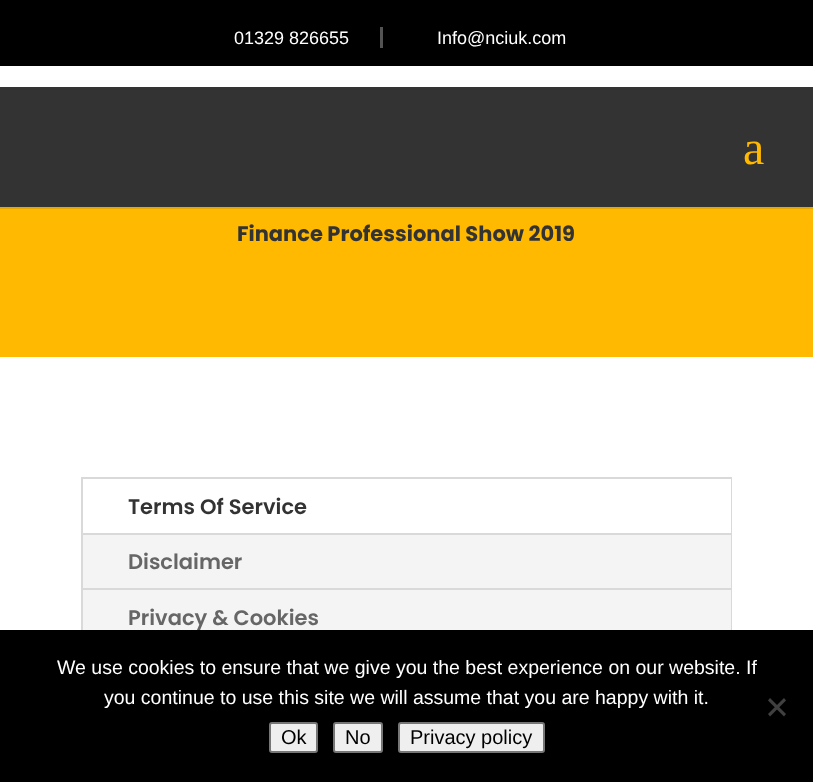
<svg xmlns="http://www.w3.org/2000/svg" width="813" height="782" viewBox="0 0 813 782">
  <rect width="100%" height="100%" fill="#ffffff"/>
  <rect x="0" y="0" width="813" height="66" fill="#000000"/>
  <text x="234" y="44" font-family="Liberation Sans" font-size="18" fill="#ffffff">01329 826655</text>
  <rect x="380" y="27" width="3" height="21" fill="#535353"/>
  <text x="437" y="44" font-family="Liberation Sans" font-size="18" fill="#ffffff">Info@nciuk.com</text>
  <rect x="0" y="207" width="813" height="2" fill="#e5a700"/>
  <rect x="0" y="87" width="813" height="120" fill="#333333"/>
  <text x="743" y="164" font-family="Liberation Serif" font-size="48" fill="#feb900">a</text>
  <rect x="0" y="209" width="813" height="148" fill="#feb900"/>
  <text x="237" y="241" font-family="Poppins" font-size="21" font-weight="bold" fill="#333333">Finance Professional Show 2019</text>
  <rect x="82" y="478" width="649" height="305" fill="none" stroke="#d9d9d9" stroke-width="2"/>
  <rect x="83" y="535" width="648" height="95" fill="#f4f4f4"/>
  <rect x="730" y="479" width="1" height="54" fill="#ffffff"/>
  <rect x="83" y="533" width="648" height="2" fill="#d9d9d9"/>
  <text x="128" y="514" font-family="Poppins" font-size="21" font-weight="600" fill="#333333">Terms Of Service</text>
  <rect x="83" y="588" width="648" height="2" fill="#d9d9d9"/>
  <text x="128" y="569" font-family="Poppins" font-size="21" font-weight="600" fill="#666666">Disclaimer</text>
  <text x="128" y="625" font-family="Poppins" font-size="21" font-weight="600" fill="#666666">Privacy &amp; Cookies</text>
  <rect x="0" y="630" width="813" height="152" fill="#000000"/>
  <text x="57" y="674" font-family="Liberation Sans" font-size="19.5" fill="#ffffff">We use cookies to ensure that we give you the best experience on our website. If</text>
  <text x="104" y="704" font-family="Liberation Sans" font-size="19.5" fill="#ffffff">you continue to use this site we will assume that you are happy with it.</text>
  <path d="M784 698L786 700.5L770 716.5L768 714Z" fill="#404040"/>
  <path d="M768 700.5L770 698L786 714L784 716.5Z" fill="#404040"/>
  <rect x="270" y="723" width="47" height="29" rx="2" fill="#efefef" stroke="#767676" stroke-width="2"/>
  <text x="281" y="744" font-family="Liberation Sans" font-size="20" fill="#000000">Ok</text>
  <rect x="334" y="723" width="48" height="29" rx="2" fill="#efefef" stroke="#767676" stroke-width="2"/>
  <text x="345" y="744" font-family="Liberation Sans" font-size="20" fill="#000000">No</text>
  <rect x="399" y="723" width="145" height="29" rx="2" fill="#efefef" stroke="#767676" stroke-width="2"/>
  <text x="410" y="744" font-family="Liberation Sans" font-size="20" fill="#000000">Privacy policy</text>
</svg>
